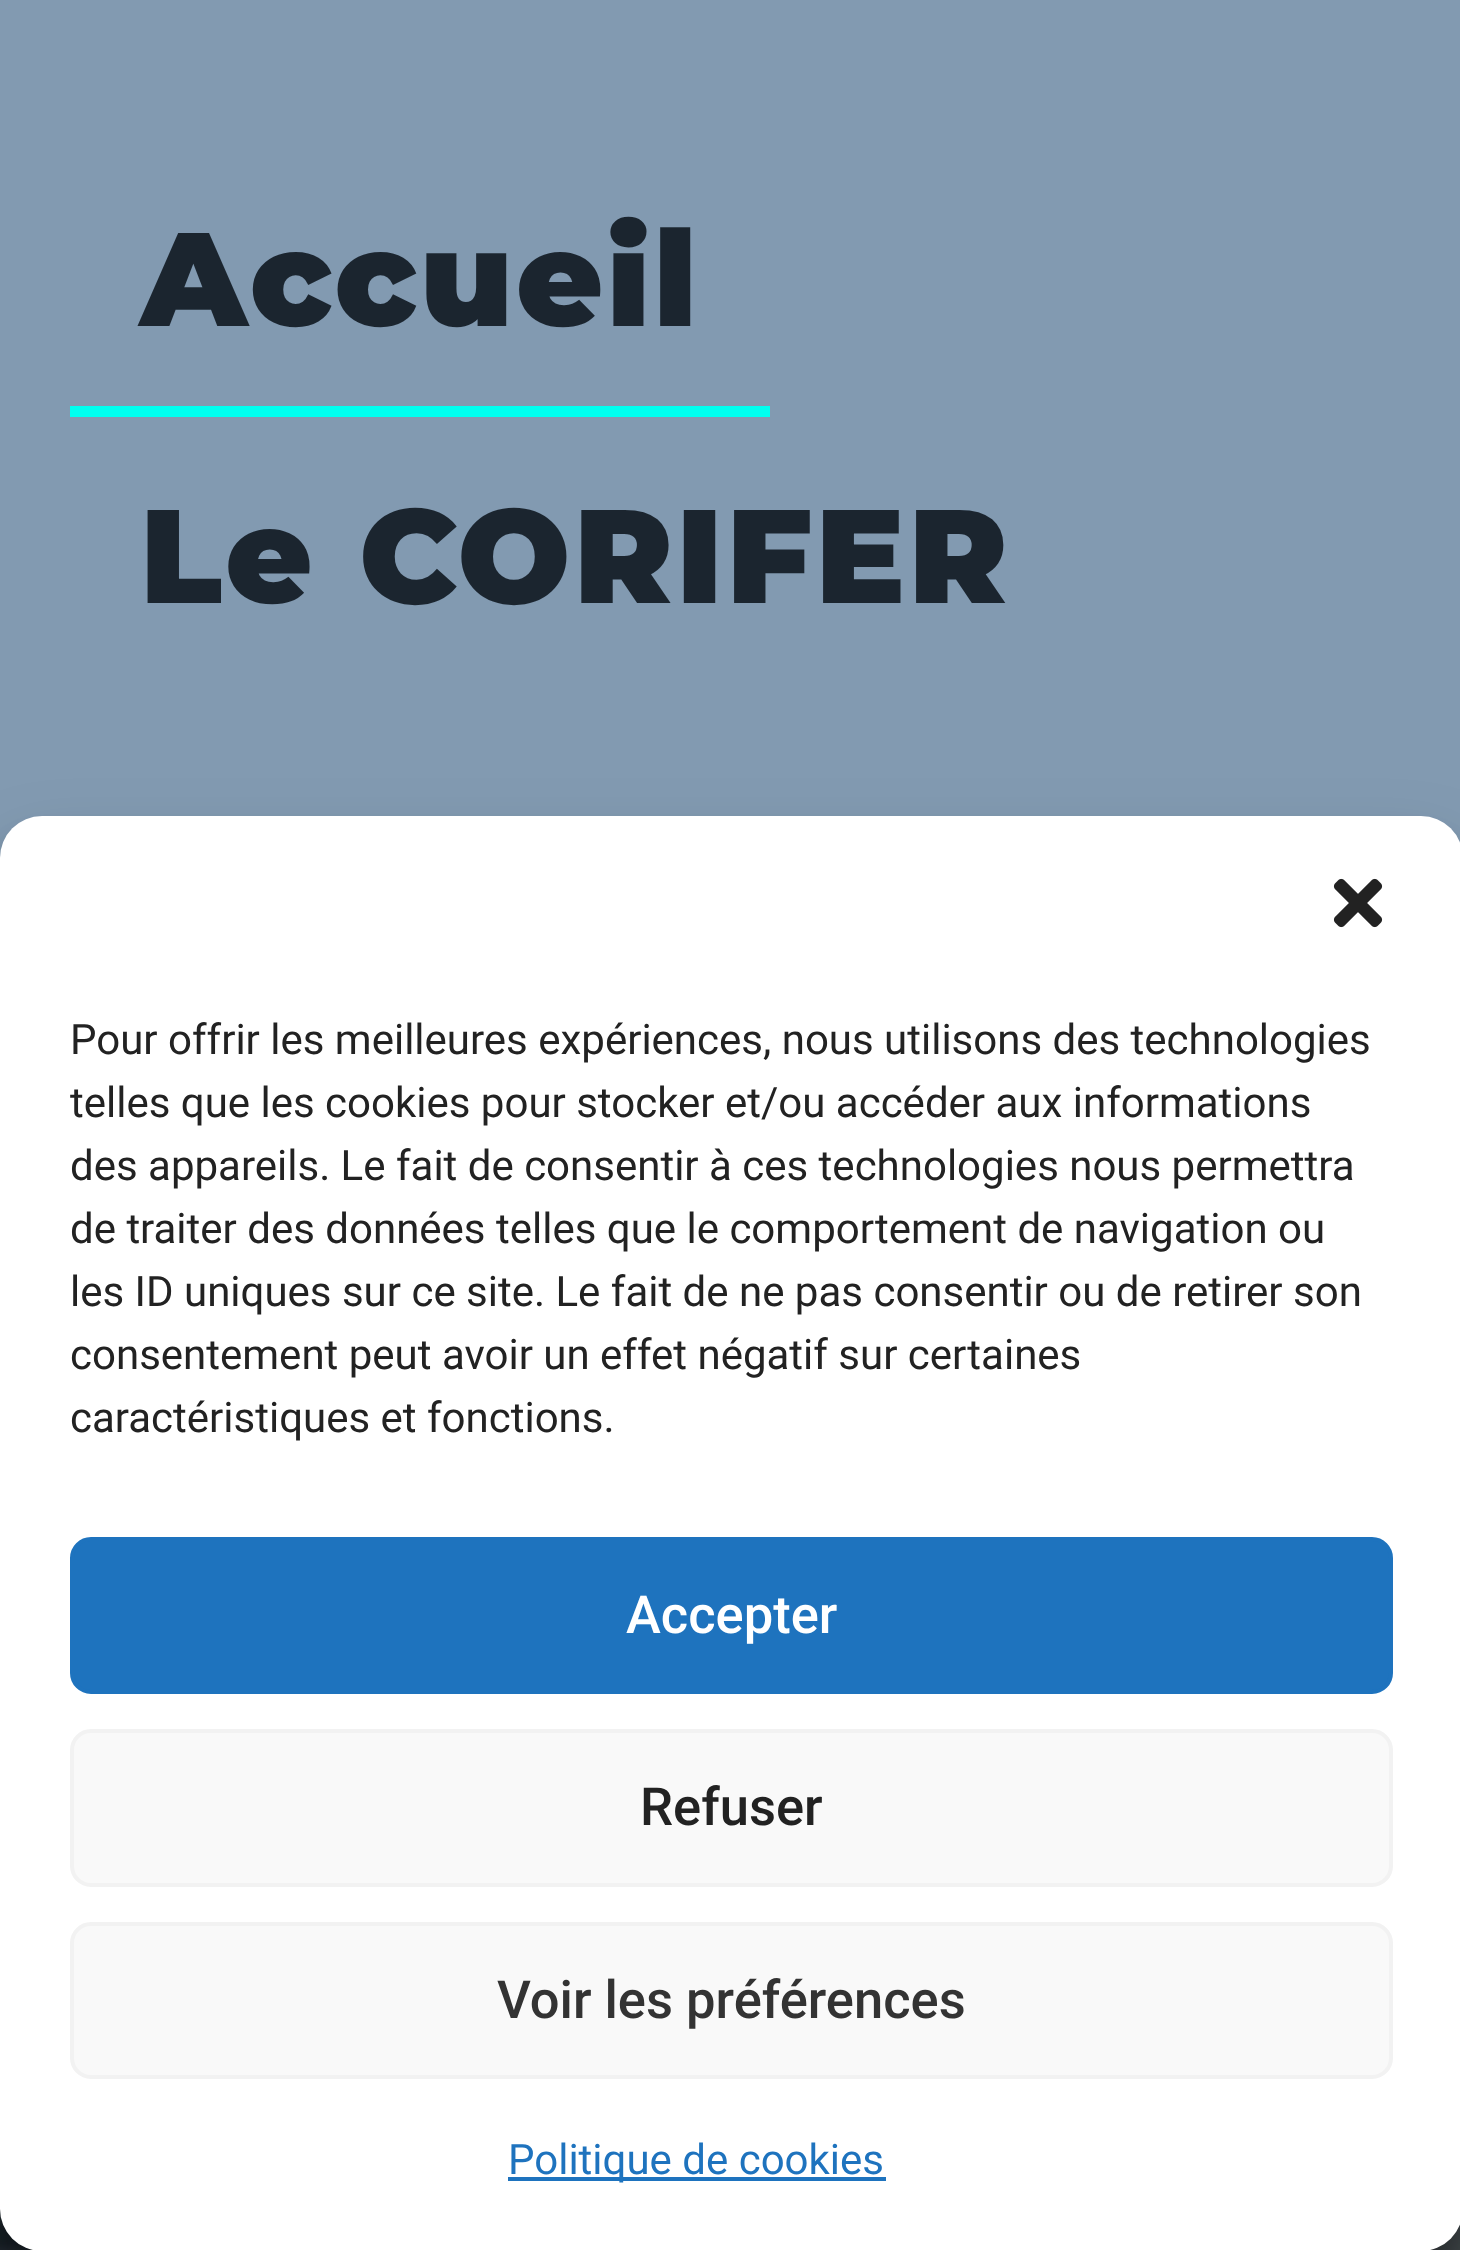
<svg xmlns="http://www.w3.org/2000/svg" width="1460" height="2250" viewBox="0 0 1460 2250">
  <defs>
    <filter id="blur1" x="-50%" y="-200%" width="200%" height="500%"><feGaussianBlur stdDeviation="10.5"/></filter>
    <filter id="blur2" x="-50%" y="-200%" width="200%" height="500%"><feGaussianBlur stdDeviation="35"/></filter>
  </defs>
  <rect width="100%" height="100%" fill="#829ab1"/>
  <text x="140" y="326" font-family="Montserrat" font-size="133" font-weight="900" letter-spacing="3.5" fill="#1b252f">Accueil</text>
  <rect x="70" y="406" width="700" height="11" fill="#00fff0"/>
  <text x="140" y="603" font-family="Montserrat" font-size="133" font-weight="900" letter-spacing="3.5" fill="#1b252f">Le CORIFER</text>
  <image x="0" y="2209" width="1460" height="41" href="img2.png"/>
  <rect x="0" y="837" width="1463" height="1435" rx="42" fill="#000000" fill-opacity="0.23" filter="url(#blur1)"/>
  <rect x="0" y="851" width="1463" height="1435" rx="42" fill="#000000" fill-opacity="0.19" filter="url(#blur2)"/>
  <rect x="0" y="816" width="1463" height="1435" rx="42" fill="#ffffff"/>
  <image x="1333" y="878" width="50" height="50" href="img1.png"/>
  <text x="70" y="1054" font-family="Roboto" font-size="42" fill="#222222">Pour offrir les meilleures expériences, nous utilisons des technologies</text>
  <text x="70" y="1117" font-family="Roboto" font-size="42" fill="#222222">telles que les cookies pour stocker et/ou accéder aux informations</text>
  <text x="70" y="1180" font-family="Roboto" font-size="42" fill="#222222">des appareils. Le fait de consentir à ces technologies nous permettra</text>
  <text x="70" y="1243" font-family="Roboto" font-size="42" fill="#222222">de traiter des données telles que le comportement de navigation ou</text>
  <text x="70" y="1306" font-family="Roboto" font-size="42" fill="#222222">les ID uniques sur ce site. Le fait de ne pas consentir ou de retirer son</text>
  <text x="70" y="1369" font-family="Roboto" font-size="42" fill="#222222">consentement peut avoir un effet négatif sur certaines</text>
  <text x="70" y="1432" font-family="Roboto" font-size="42" fill="#222222">caractéristiques et fonctions.</text>
  <rect x="72" y="1539" width="1319" height="153" rx="19" fill="#1e73be" stroke="#1e73be" stroke-width="4"/>
  <text x="626" y="1633" font-family="Roboto" font-size="52.5" font-weight="500" fill="#ffffff">Accepter</text>
  <rect x="72" y="1731" width="1319" height="154" rx="19" fill="#f9f9f9" stroke="#f2f2f2" stroke-width="4"/>
  <text x="640" y="1825" font-family="Roboto" font-size="52.5" font-weight="500" fill="#222222">Refuser</text>
  <rect x="72" y="1924" width="1319" height="153" rx="19" fill="#f9f9f9" stroke="#f2f2f2" stroke-width="4"/>
  <text x="497" y="2018" font-family="Roboto" font-size="52.5" font-weight="500" fill="#333333">Voir les préférences</text>
  <rect x="508" y="2177" width="378" height="4" fill="#1e73be"/>
  <text x="508" y="2174" font-family="Roboto" font-size="42" fill="#1e73be">Politique de cookies</text>
</svg>
